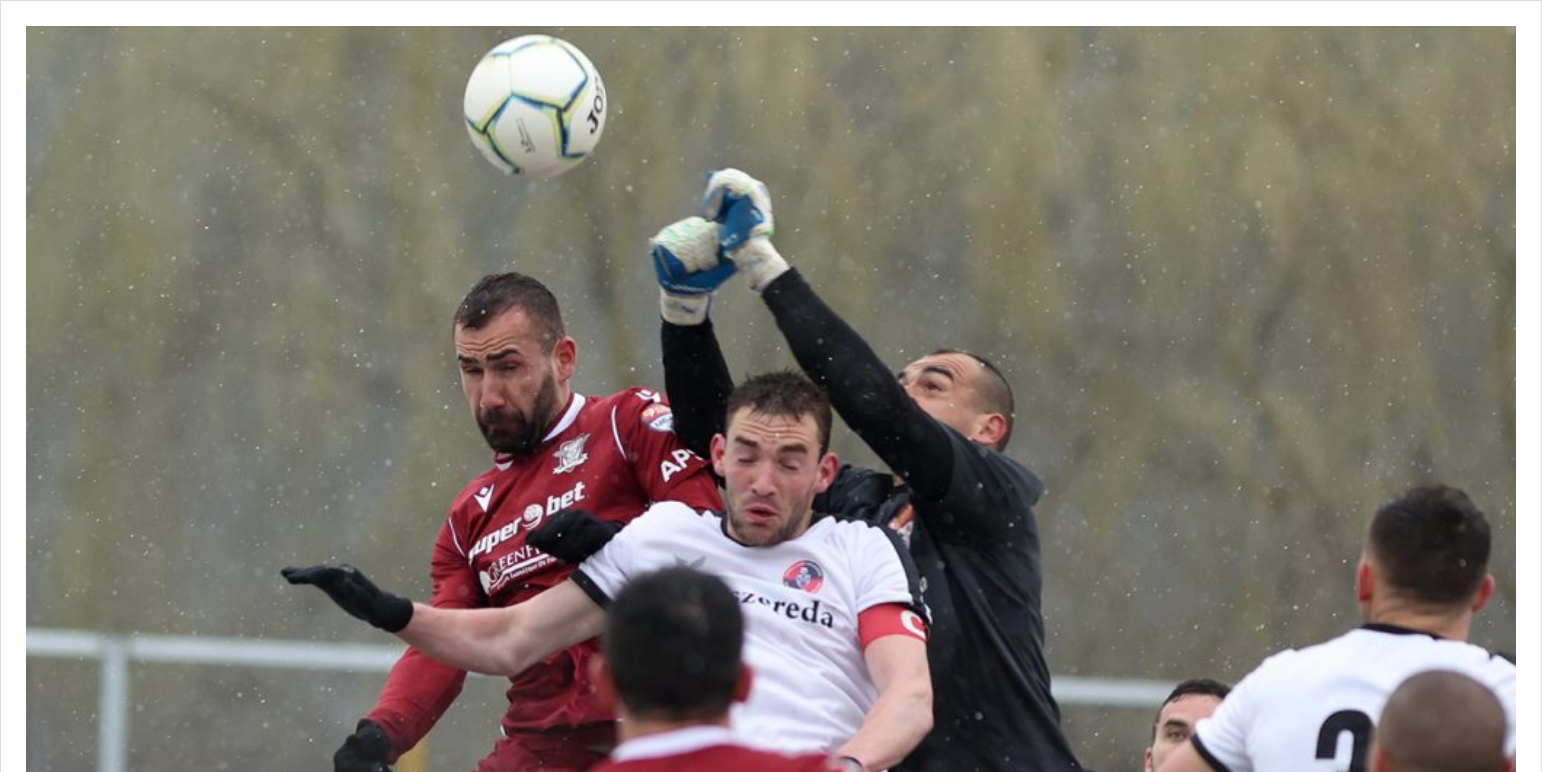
<svg xmlns="http://www.w3.org/2000/svg" width="1542" height="772" viewBox="0 0 1542 772">
  <rect width="100%" height="100%" fill="#ffffff"/>
  <rect x="0.5" y="0.5" width="1541" height="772" fill="none" stroke="#dcdcde"/>
  <image x="26" y="26" width="1490" height="746" href="img1.png"/>
</svg>
